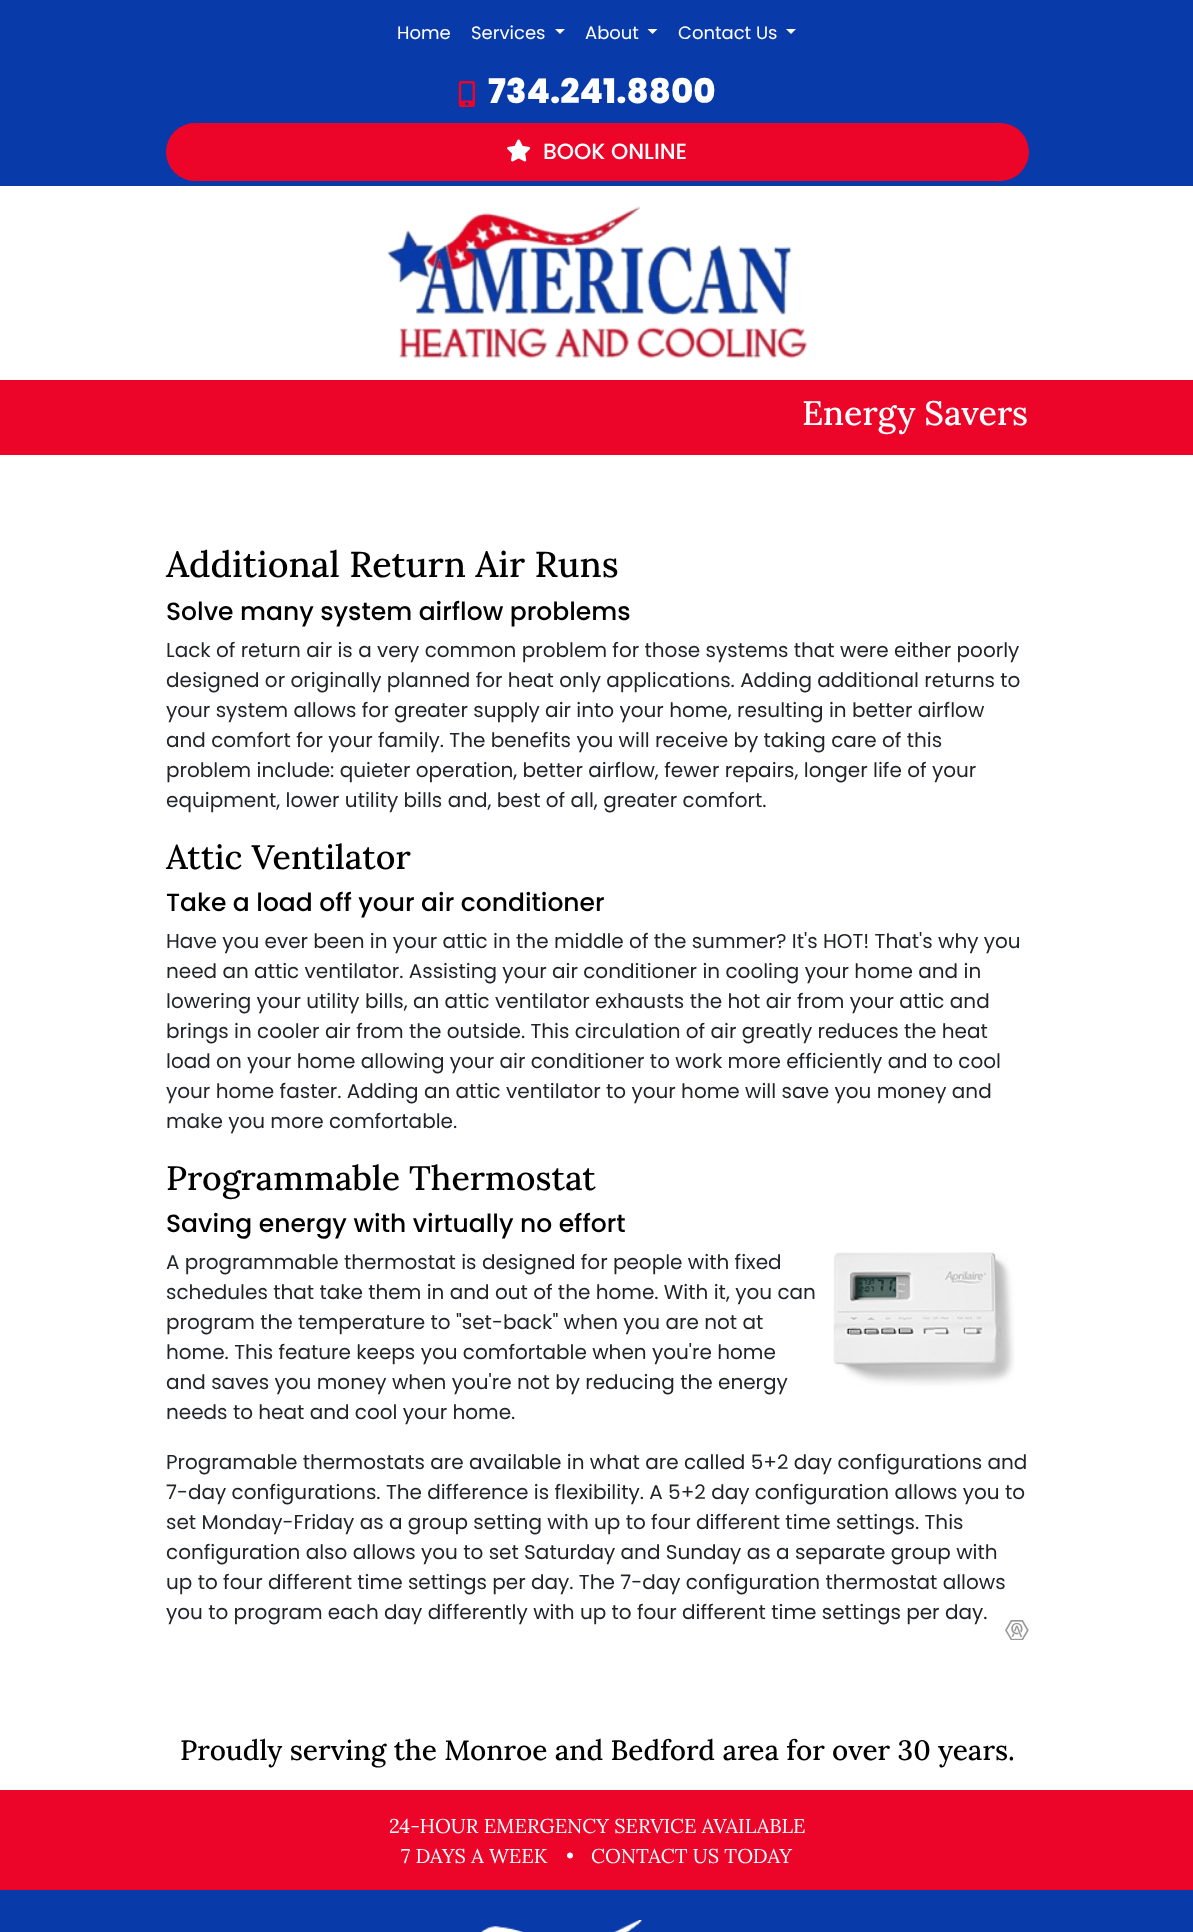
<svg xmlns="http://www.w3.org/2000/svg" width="1193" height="1932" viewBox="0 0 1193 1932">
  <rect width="100%" height="100%" fill="#ffffff"/>
  <rect x="0" y="0" width="1193" height="186" fill="#083aa9"/>
  <text x="397" y="39" font-family="Poppins" font-size="18" fill="#ffffff">Home</text>
  <text x="471" y="39" font-family="Poppins" font-size="18" fill="#ffffff">Services</text>
  <path d="M555 29H565L560 34Z" fill="#ffffff"/>
  <text x="585" y="39" font-family="Poppins" font-size="18" fill="#ffffff">About</text>
  <path d="M647.5 29H657.5L652.5 34Z" fill="#ffffff"/>
  <text x="678" y="39" font-family="Poppins" font-size="18" fill="#ffffff">Contact Us</text>
  <path d="M786 29H796L791 34Z" fill="#ffffff"/>
  <image x="458" y="81" width="17" height="26" href="img1.png"/>
  <text x="488" y="103" font-family="Poppins" font-size="34" font-weight="800" fill="#ffffff">734.241.8800</text>
  <rect x="166" y="123" width="863" height="58" rx="29" fill="#ec0529"/>
  <image x="507" y="139" width="24" height="23" href="img2.png"/>
  <text x="543" y="159" font-family="Poppins" font-size="22" font-weight="500" fill="#ffffff">BOOK ONLINE</text>
  <image x="387" y="206" width="421" height="153" href="img3.png"/>
  <rect x="0" y="380" width="1193" height="75" fill="#ec0529"/>
  <text x="802" y="425" font-family="Lora" font-size="34" font-weight="500" fill="#ffffff">Energy Savers</text>
  <text x="166" y="577" font-family="Lora" font-size="36" font-weight="500" fill="#000000">Additional Return Air Runs</text>
  <text x="166" y="620" font-family="Poppins" font-size="25" font-weight="500" fill="#000000">Solve many system airflow problems</text>
  <text x="166" y="657" font-family="Poppins" font-size="20" fill="#212529">Lack of return air is a very common problem for those systems that were either poorly</text>
  <text x="166" y="687" font-family="Poppins" font-size="20" fill="#212529">designed or originally planned for heat only applications. Adding additional returns to</text>
  <text x="166" y="717" font-family="Poppins" font-size="20" fill="#212529">your system allows for greater supply air into your home, resulting in better airflow</text>
  <text x="166" y="747" font-family="Poppins" font-size="20" fill="#212529">and comfort for your family. The benefits you will receive by taking care of this</text>
  <text x="166" y="777" font-family="Poppins" font-size="20" fill="#212529">problem include: quieter operation, better airflow, fewer repairs, longer life of your</text>
  <text x="166" y="807" font-family="Poppins" font-size="20" fill="#212529">equipment, lower utility bills and, best of all, greater comfort.</text>
  <text x="166" y="869" font-family="Lora" font-size="34" font-weight="500" fill="#000000">Attic Ventilator</text>
  <text x="166" y="911" font-family="Poppins" font-size="25" font-weight="500" fill="#000000">Take a load off your air conditioner</text>
  <text x="166" y="948" font-family="Poppins" font-size="20" fill="#212529">Have you ever been in your attic in the middle of the summer? It's HOT! That's why you</text>
  <text x="166" y="978" font-family="Poppins" font-size="20" fill="#212529">need an attic ventilator. Assisting your air conditioner in cooling your home and in</text>
  <text x="166" y="1008" font-family="Poppins" font-size="20" fill="#212529">lowering your utility bills, an attic ventilator exhausts the hot air from your attic and</text>
  <text x="166" y="1038" font-family="Poppins" font-size="20" fill="#212529">brings in cooler air from the outside. This circulation of air greatly reduces the heat</text>
  <text x="166" y="1068" font-family="Poppins" font-size="20" fill="#212529">load on your home allowing your air conditioner to work more efficiently and to cool</text>
  <text x="166" y="1098" font-family="Poppins" font-size="20" fill="#212529">your home faster. Adding an attic ventilator to your home will save you money and</text>
  <text x="166" y="1128" font-family="Poppins" font-size="20" fill="#212529">make you more comfortable.</text>
  <text x="166" y="1190" font-family="Lora" font-size="34" font-weight="500" fill="#000000">Programmable Thermostat</text>
  <text x="166" y="1232" font-family="Poppins" font-size="25" font-weight="500" fill="#000000">Saving energy with virtually no effort</text>
  <text x="166" y="1269" font-family="Poppins" font-size="20" fill="#212529">A programmable thermostat is designed for people with fixed</text>
  <text x="166" y="1299" font-family="Poppins" font-size="20" fill="#212529">schedules that take them in and out of the home. With it, you can</text>
  <text x="166" y="1329" font-family="Poppins" font-size="20" fill="#212529">program the temperature to "set-back" when you are not at</text>
  <text x="166" y="1359" font-family="Poppins" font-size="20" fill="#212529">home. This feature keeps you comfortable when you're home</text>
  <text x="166" y="1389" font-family="Poppins" font-size="20" fill="#212529">and saves you money when you're not by reducing the energy</text>
  <text x="166" y="1419" font-family="Poppins" font-size="20" fill="#212529">needs to heat and cool your home.</text>
  <image x="833" y="1252" width="182" height="134" href="img4.png"/>
  <text x="166" y="1469" font-family="Poppins" font-size="20" fill="#212529">Programable thermostats are available in what are called 5+2 day configurations and</text>
  <text x="166" y="1499" font-family="Poppins" font-size="20" fill="#212529">7-day configurations. The difference is flexibility. A 5+2 day configuration allows you to</text>
  <text x="166" y="1529" font-family="Poppins" font-size="20" fill="#212529">set Monday-Friday as a group setting with up to four different time settings. This</text>
  <text x="166" y="1559" font-family="Poppins" font-size="20" fill="#212529">configuration also allows you to set Saturday and Sunday as a separate group with</text>
  <text x="166" y="1589" font-family="Poppins" font-size="20" fill="#212529">up to four different time settings per day. The 7-day configuration thermostat allows</text>
  <text x="166" y="1619" font-family="Poppins" font-size="20" fill="#212529">you to program each day differently with up to four different time settings per day.</text>
  <image x="1005" y="1620" width="24" height="20" href="img5.png"/>
  <text x="180" y="1760" font-family="Lora" font-size="28" font-weight="500" fill="#000000">Proudly serving the Monroe and Bedford area for over 30 years.</text>
  <rect x="0" y="1790" width="1193" height="100" fill="#ec0529"/>
  <text x="389" y="1833" font-family="Lora" font-size="20" fill="#ffffff">24-HOUR EMERGENCY SERVICE AVAILABLE</text>
  <text x="401" y="1863" font-family="Lora" font-size="20" fill="#ffffff">7 DAYS A WEEK</text>
  <text x="566" y="1863" font-family="Lora" font-size="20" fill="#ffffff">•</text>
  <text x="591" y="1863" font-family="Lora" font-size="20" fill="#ffffff">CONTACT US TODAY</text>
  <rect x="0" y="1890" width="1193" height="42" fill="#083aa9"/>
  <image x="481" y="1920" width="161" height="12" href="img6.png"/>
</svg>
